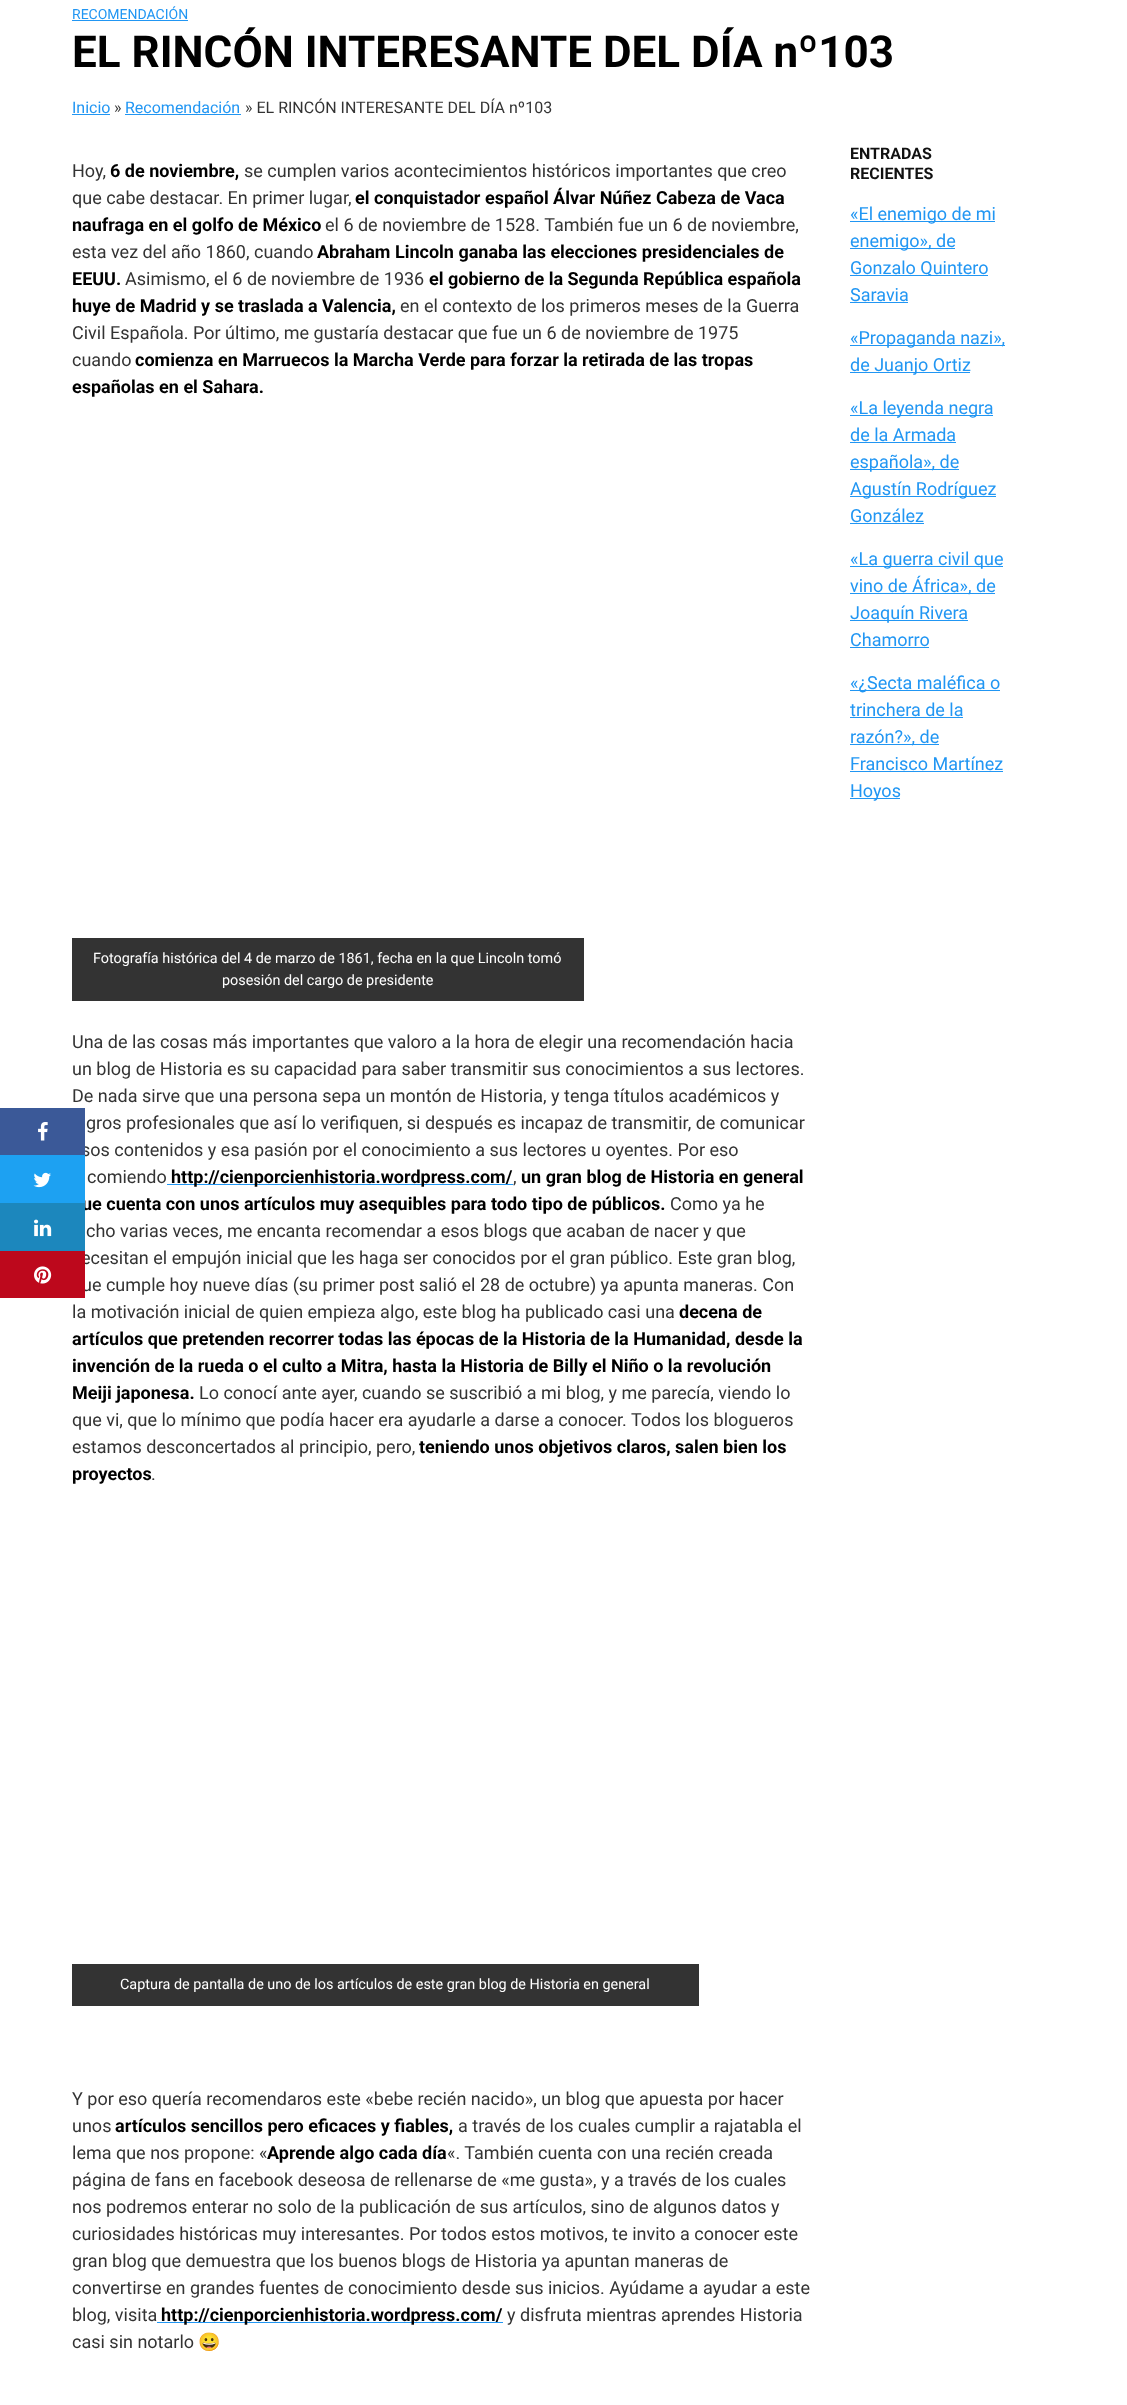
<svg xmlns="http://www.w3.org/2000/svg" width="1127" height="2405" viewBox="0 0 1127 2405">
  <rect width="100%" height="100%" fill="#ffffff"/>
  <text x="81" y="1156" font-family="Roboto" font-size="18" fill="#333333">sos contenidos y esa pasión por el conocimiento a sus lectores u oyentes. Por eso</text>
  <rect x="0" y="1108" width="85" height="47" fill="#3b5998"/>
  <image x="38" y="1122" width="10" height="19" href="img1.png"/>
  <text x="82" y="1210" font-family="Roboto" font-size="18" font-weight="bold" fill="#000000">ue cuenta con unos artículos muy asequibles para todo tipo de públicos.</text>
  <rect x="0" y="1155" width="85" height="48" fill="#1da1f2"/>
  <image x="33" y="1172" width="18" height="16" href="img2.png"/>
  <text x="81" y="1264" font-family="Roboto" font-size="18" fill="#333333">ecesitan el empujón inicial que les haga ser conocidos por el gran público. Este gran blog,</text>
  <rect x="0" y="1203" width="85" height="48" fill="#1c87bd"/>
  <image x="34" y="1219" width="18" height="18" href="img3.png"/>
  <text x="82" y="1291" font-family="Roboto" font-size="18" fill="#333333">ue cumple hoy nueve días (su primer post salió el 28 de octubre) ya apunta maneras. Con</text>
  <rect x="0" y="1251" width="85" height="47" fill="#bd081c"/>
  <image x="34" y="1266" width="18" height="18" href="img4.png"/>
  <text x="72" y="19" font-family="Roboto" font-size="14" fill="#2196f3">RECOMENDACIÓN</text>
  <rect x="72" y="20" width="116" height="1" fill="#2196f3"/>
  <text x="72" y="67" font-family="Roboto" font-size="44" font-weight="bold" fill="#000000">EL RINCÓN INTERESANTE DEL DÍA nº103</text>
  <text x="72" y="113" font-family="Roboto" font-size="16" fill="#2196f3">Inicio</text>
  <rect x="72" y="114" width="38" height="1" fill="#2196f3"/>
  <text x="114" y="113" font-family="Roboto" font-size="16" fill="#333333">»</text>
  <text x="125" y="113" font-family="Roboto" font-size="16" fill="#2196f3">Recomendación</text>
  <rect x="125" y="114" width="116" height="1" fill="#2196f3"/>
  <text x="245" y="113" font-family="Roboto" font-size="16" fill="#333333">» EL RINCÓN INTERESANTE DEL DÍA nº103</text>
  <text x="72" y="177" font-family="Roboto" font-size="18" fill="#333333">Hoy,</text>
  <text x="110" y="177" font-family="Roboto" font-size="18" font-weight="bold" fill="#000000">6 de noviembre,</text>
  <text x="244" y="177" font-family="Roboto" font-size="18" fill="#333333">se cumplen varios acontecimientos históricos importantes que creo</text>
  <text x="72" y="204" font-family="Roboto" font-size="18" fill="#333333">que cabe destacar. En primer lugar,</text>
  <text x="355" y="204" font-family="Roboto" font-size="18" font-weight="bold" fill="#000000">el conquistador español Álvar Núñez Cabeza de Vaca</text>
  <text x="72" y="231" font-family="Roboto" font-size="18" font-weight="bold" fill="#000000">naufraga en el golfo de México</text>
  <text x="325" y="231" font-family="Roboto" font-size="18" fill="#333333">el 6 de noviembre de 1528. También fue un 6 de noviembre,</text>
  <text x="72" y="258" font-family="Roboto" font-size="18" fill="#333333">esta vez del año 1860, cuando</text>
  <text x="317" y="258" font-family="Roboto" font-size="18" font-weight="bold" fill="#000000">Abraham Lincoln ganaba las elecciones presidenciales de</text>
  <text x="72" y="285" font-family="Roboto" font-size="18" font-weight="bold" fill="#000000">EEUU.</text>
  <text x="125" y="285" font-family="Roboto" font-size="18" fill="#333333">Asimismo, el 6 de noviembre de 1936</text>
  <text x="429" y="285" font-family="Roboto" font-size="18" font-weight="bold" fill="#000000">el gobierno de la Segunda República española</text>
  <text x="72" y="312" font-family="Roboto" font-size="18" font-weight="bold" fill="#000000">huye de Madrid y se traslada a Valencia,</text>
  <text x="400" y="312" font-family="Roboto" font-size="18" fill="#333333">en el contexto de los primeros meses de la Guerra</text>
  <text x="72" y="339" font-family="Roboto" font-size="18" fill="#333333">Civil Española. Por último, me gustaría destacar que fue un 6 de noviembre de 1975</text>
  <text x="72" y="366" font-family="Roboto" font-size="18" fill="#333333">cuando</text>
  <text x="135" y="366" font-family="Roboto" font-size="18" font-weight="bold" fill="#000000">comienza en Marruecos la Marcha Verde para forzar la retirada de las tropas</text>
  <text x="72" y="393" font-family="Roboto" font-size="18" font-weight="bold" fill="#000000">españolas en el Sahara.</text>
  <rect x="72" y="938" width="512" height="63" fill="#333333"/>
  <text x="93" y="963" font-family="Roboto" font-size="14.4" fill="#ffffff">Fotografía histórica del 4 de marzo de 1861, fecha en la que Lincoln tomó</text>
  <text x="222" y="985" font-family="Roboto" font-size="14.4" fill="#ffffff">posesión del cargo de presidente</text>
  <text x="72" y="1048" font-family="Roboto" font-size="18" fill="#333333">Una de las cosas más importantes que valoro a la hora de elegir una recomendación hacia</text>
  <text x="72" y="1075" font-family="Roboto" font-size="18" fill="#333333">un blog de Historia es su capacidad para saber transmitir sus conocimientos a sus lectores.</text>
  <text x="72" y="1102" font-family="Roboto" font-size="18" fill="#333333">De nada sirve que una persona sepa un montón de Historia, y tenga títulos académicos y</text>
  <text x="86" y="1129" font-family="Roboto" font-size="18" fill="#333333">gros profesionales que así lo verifiquen, si después es incapaz de transmitir, de comunicar</text>
  <text x="87" y="1183" font-family="Roboto" font-size="18" fill="#333333">comiendo</text>
  <rect x="167" y="1184" width="346" height="1" fill="#2196f3"/>
  <text x="171" y="1183" font-family="Roboto" font-size="18" font-weight="bold" fill="#000000">http://cienporcienhistoria.wordpress.com/</text>
  <text x="513" y="1183" font-family="Roboto" font-size="18" fill="#333333">,</text>
  <text x="521" y="1183" font-family="Roboto" font-size="18" font-weight="bold" fill="#000000">un gran blog de Historia en general</text>
  <text x="670" y="1210" font-family="Roboto" font-size="18" fill="#333333">Como ya he</text>
  <text x="86" y="1237" font-family="Roboto" font-size="18" fill="#333333">cho varias veces, me encanta recomendar a esos blogs que acaban de nacer y que</text>
  <text x="72" y="1318" font-family="Roboto" font-size="18" fill="#333333">la motivación inicial de quien empieza algo, este blog ha publicado casi una</text>
  <text x="679" y="1318" font-family="Roboto" font-size="18" font-weight="bold" fill="#000000">decena de</text>
  <text x="72" y="1345" font-family="Roboto" font-size="18" font-weight="bold" fill="#000000">artículos que pretenden recorrer todas las épocas de la Historia de la Humanidad, desde la</text>
  <text x="72" y="1372" font-family="Roboto" font-size="18" font-weight="bold" fill="#000000">invención de la rueda o el culto a Mitra, hasta la Historia de Billy el Niño o la revolución</text>
  <text x="72" y="1399" font-family="Roboto" font-size="18" font-weight="bold" fill="#000000">Meiji japonesa.</text>
  <text x="199" y="1399" font-family="Roboto" font-size="18" fill="#333333">Lo conocí ante ayer, cuando se suscribió a mi blog, y me parecía, viendo lo</text>
  <text x="72" y="1426" font-family="Roboto" font-size="18" fill="#333333">que vi, que lo mínimo que podía hacer era ayudarle a darse a conocer. Todos los blogueros</text>
  <text x="72" y="1453" font-family="Roboto" font-size="18" fill="#333333">estamos desconcertados al principio, pero,</text>
  <text x="419" y="1453" font-family="Roboto" font-size="18" font-weight="bold" fill="#000000">teniendo unos objetivos claros, salen bien los</text>
  <text x="72" y="1480" font-family="Roboto" font-size="18" font-weight="bold" fill="#000000">proyectos</text>
  <text x="151" y="1480" font-family="Roboto" font-size="18" fill="#333333">.</text>
  <rect x="72" y="1964" width="627" height="42" fill="#333333"/>
  <text x="120" y="1989" font-family="Roboto" font-size="14.4" fill="#ffffff">Captura de pantalla de uno de los artículos de este gran blog de Historia en general</text>
  <text x="72" y="2105" font-family="Roboto" font-size="18" fill="#333333">Y por eso quería recomendaros este «bebe recién nacido», un blog que apuesta por hacer</text>
  <text x="72" y="2132" font-family="Roboto" font-size="18" fill="#333333">unos</text>
  <text x="115" y="2132" font-family="Roboto" font-size="18" font-weight="bold" fill="#000000">artículos sencillos pero eficaces y fiables,</text>
  <text x="458" y="2132" font-family="Roboto" font-size="18" fill="#333333">a través de los cuales cumplir a rajatabla el</text>
  <text x="72" y="2159" font-family="Roboto" font-size="18" fill="#333333">lema que nos propone: «</text>
  <text x="267" y="2159" font-family="Roboto" font-size="18" font-weight="bold" fill="#000000">Aprende algo cada día</text>
  <text x="447" y="2159" font-family="Roboto" font-size="18" fill="#333333">«. También cuenta con una recién creada</text>
  <text x="72" y="2186" font-family="Roboto" font-size="18" fill="#333333">página de fans en facebook deseosa de rellenarse de «me gusta», y a través de los cuales</text>
  <text x="72" y="2213" font-family="Roboto" font-size="18" fill="#333333">nos podremos enterar no solo de la publicación de sus artículos, sino de algunos datos y</text>
  <text x="72" y="2240" font-family="Roboto" font-size="18" fill="#333333">curiosidades históricas muy interesantes. Por todos estos motivos, te invito a conocer este</text>
  <text x="72" y="2267" font-family="Roboto" font-size="18" fill="#333333">gran blog que demuestra que los buenos blogs de Historia ya apuntan maneras de</text>
  <text x="72" y="2294" font-family="Roboto" font-size="18" fill="#333333">convertirse en grandes fuentes de conocimiento desde sus inicios. Ayúdame a ayudar a este</text>
  <text x="72" y="2321" font-family="Roboto" font-size="18" fill="#333333">blog, visita</text>
  <rect x="157" y="2322" width="346" height="1" fill="#2196f3"/>
  <text x="161" y="2321" font-family="Roboto" font-size="18" font-weight="bold" fill="#000000">http://cienporcienhistoria.wordpress.com/</text>
  <text x="507" y="2321" font-family="Roboto" font-size="18" fill="#333333">y disfruta mientras aprendes Historia</text>
  <text x="72" y="2348" font-family="Roboto" font-size="18" fill="#333333">casi sin notarlo</text>
  <text x="198" y="2348" font-family="Noto Color Emoji" font-size="18" fill="#333333">😀</text>
  <text x="850" y="159" font-family="Roboto" font-size="16" font-weight="bold" fill="#111111">ENTRADAS</text>
  <text x="850" y="179" font-family="Roboto" font-size="16" font-weight="bold" fill="#111111">RECIENTES</text>
  <rect x="850" y="221" width="145" height="1" fill="#2196f3"/>
  <text x="850" y="220" font-family="Roboto" font-size="18" fill="#2196f3">«El enemigo de mi</text>
  <rect x="850" y="248" width="105" height="1" fill="#2196f3"/>
  <text x="850" y="247" font-family="Roboto" font-size="18" fill="#2196f3">enemigo», de</text>
  <rect x="850" y="275" width="138" height="1" fill="#2196f3"/>
  <text x="850" y="274" font-family="Roboto" font-size="18" fill="#2196f3">Gonzalo Quintero</text>
  <text x="850" y="301" font-family="Roboto" font-size="18" fill="#2196f3">Saravia</text>
  <rect x="850" y="302" width="58" height="1" fill="#2196f3"/>
  <rect x="850" y="345" width="155" height="1" fill="#2196f3"/>
  <text x="850" y="344" font-family="Roboto" font-size="18" fill="#2196f3">«Propaganda nazi»,</text>
  <rect x="850" y="372" width="120" height="1" fill="#2196f3"/>
  <text x="850" y="371" font-family="Roboto" font-size="18" fill="#2196f3">de Juanjo Ortiz</text>
  <rect x="850" y="415" width="143" height="1" fill="#2196f3"/>
  <text x="850" y="414" font-family="Roboto" font-size="18" fill="#2196f3">«La leyenda negra</text>
  <text x="850" y="441" font-family="Roboto" font-size="18" fill="#2196f3">de la Armada</text>
  <rect x="850" y="442" width="106" height="1" fill="#2196f3"/>
  <rect x="850" y="469" width="109" height="1" fill="#2196f3"/>
  <text x="850" y="468" font-family="Roboto" font-size="18" fill="#2196f3">española», de</text>
  <rect x="850" y="496" width="146" height="1" fill="#2196f3"/>
  <text x="850" y="495" font-family="Roboto" font-size="18" fill="#2196f3">Agustín Rodríguez</text>
  <text x="850" y="522" font-family="Roboto" font-size="18" fill="#2196f3">González</text>
  <rect x="850" y="523" width="74" height="1" fill="#2196f3"/>
  <rect x="850" y="566" width="153" height="1" fill="#2196f3"/>
  <text x="850" y="565" font-family="Roboto" font-size="18" fill="#2196f3">«La guerra civil que</text>
  <rect x="850" y="593" width="145" height="1" fill="#2196f3"/>
  <text x="850" y="592" font-family="Roboto" font-size="18" fill="#2196f3">vino de África», de</text>
  <rect x="850" y="620" width="118" height="1" fill="#2196f3"/>
  <text x="850" y="619" font-family="Roboto" font-size="18" fill="#2196f3">Joaquín Rivera</text>
  <text x="850" y="646" font-family="Roboto" font-size="18" fill="#2196f3">Chamorro</text>
  <rect x="850" y="647" width="79" height="1" fill="#2196f3"/>
  <rect x="850" y="690" width="150" height="1" fill="#2196f3"/>
  <text x="850" y="689" font-family="Roboto" font-size="18" fill="#2196f3">«¿Secta maléfica o</text>
  <text x="850" y="716" font-family="Roboto" font-size="18" fill="#2196f3">trinchera de la</text>
  <rect x="850" y="717" width="113" height="1" fill="#2196f3"/>
  <rect x="850" y="744" width="89" height="1" fill="#2196f3"/>
  <text x="850" y="743" font-family="Roboto" font-size="18" fill="#2196f3">razón?», de</text>
  <text x="850" y="770" font-family="Roboto" font-size="18" fill="#2196f3">Francisco Martínez</text>
  <rect x="850" y="771" width="153" height="1" fill="#2196f3"/>
  <rect x="850" y="798" width="50" height="1" fill="#2196f3"/>
  <text x="850" y="797" font-family="Roboto" font-size="18" fill="#2196f3">Hoyos</text>
</svg>
